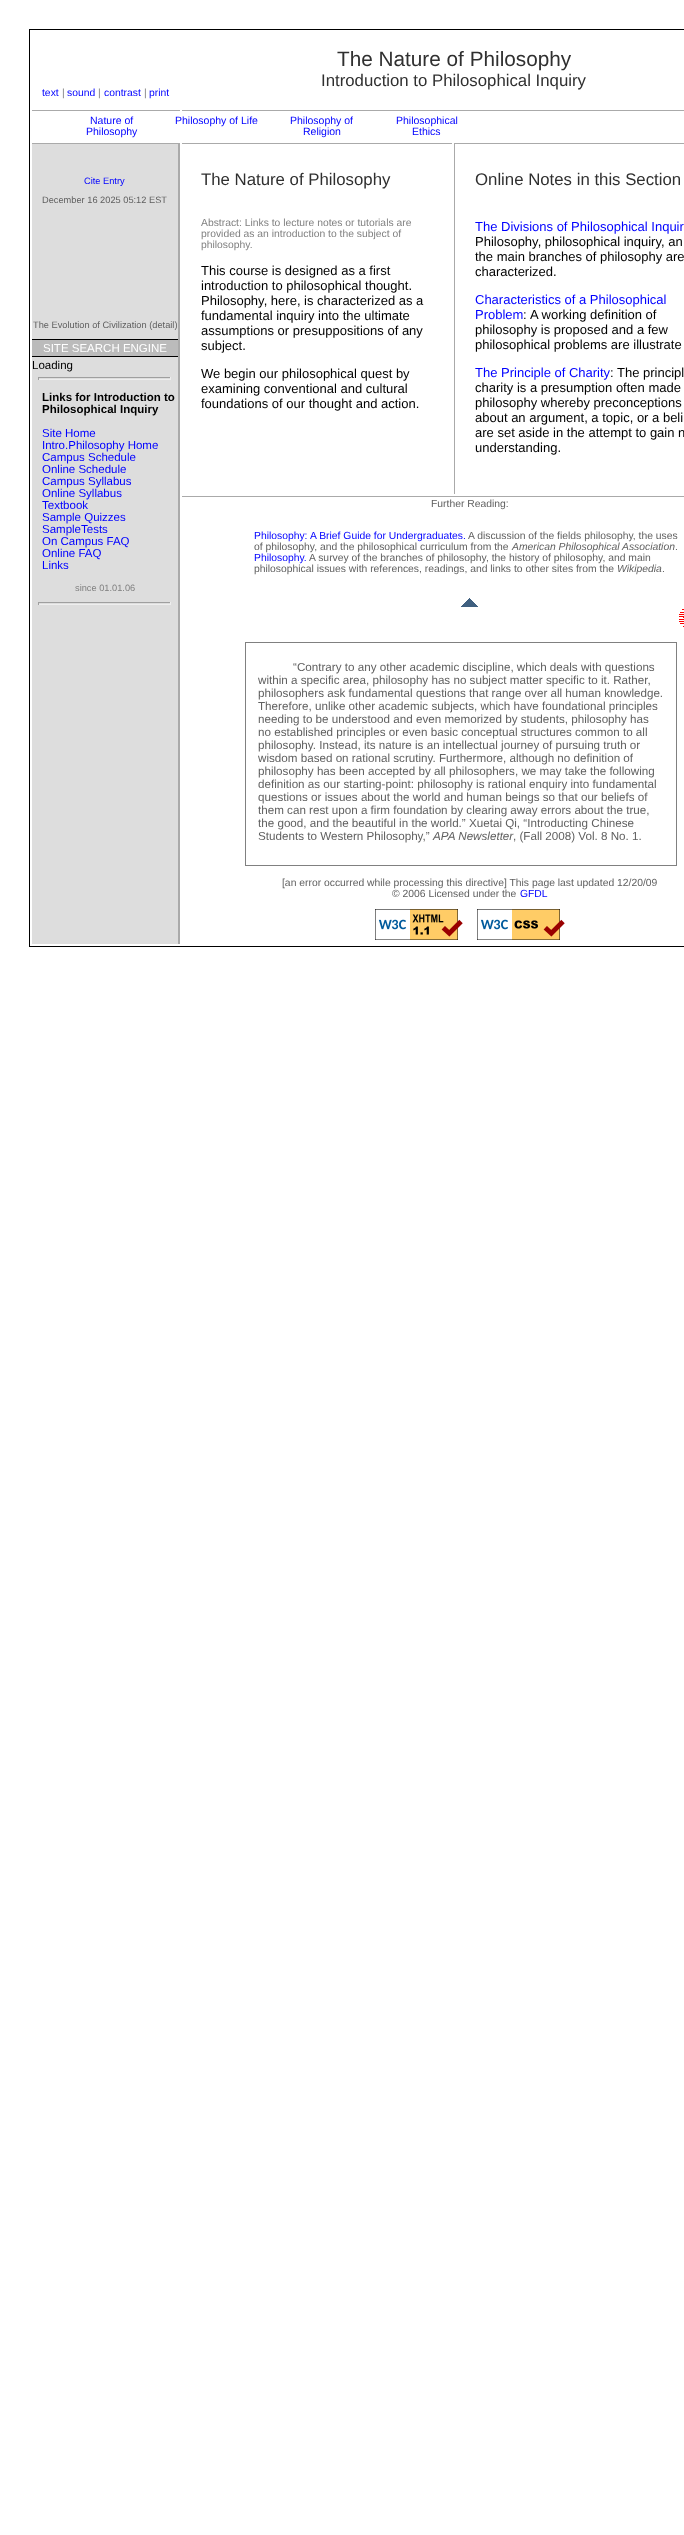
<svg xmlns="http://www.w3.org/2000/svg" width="684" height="2535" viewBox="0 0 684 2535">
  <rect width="100%" height="100%" fill="#ffffff"/>
  <rect x="29.5" y="29.5" width="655" height="917" fill="none" stroke="#000000"/>
  <rect x="182" y="110" width="502" height="1" fill="#aaaaaa"/>
  <text x="337" y="66" font-family="Liberation Sans" font-size="20.75" fill="#303030">The Nature of Philosophy</text>
  <text x="321" y="86" font-family="Liberation Sans" font-size="16.8" fill="#303030">Introduction to Philosophical Inquiry</text>
  <rect x="32" y="110" width="148" height="1" fill="#aaaaaa"/>
  <text x="42" y="96" font-family="Liberation Sans" font-size="10.35" fill="#0000ff">text</text>
  <text x="62" y="96" font-family="Liberation Sans" font-size="10.35" fill="#808080">|</text>
  <text x="67" y="96" font-family="Liberation Sans" font-size="10.35" fill="#0000ff">sound</text>
  <text x="98" y="96" font-family="Liberation Sans" font-size="10.35" fill="#808080">|</text>
  <text x="104" y="96" font-family="Liberation Sans" font-size="10.35" fill="#0000ff">contrast</text>
  <text x="144" y="96" font-family="Liberation Sans" font-size="10.35" fill="#808080">|</text>
  <text x="149" y="96" font-family="Liberation Sans" font-size="10.35" fill="#0000ff">print</text>
  <text x="90" y="124" font-family="Liberation Sans" font-size="10.5" fill="#0000ff">Nature of</text>
  <text x="86" y="135" font-family="Liberation Sans" font-size="10.5" fill="#0000ff">Philosophy</text>
  <text x="175" y="124" font-family="Liberation Sans" font-size="10.5" fill="#0000ff">Philosophy of Life</text>
  <text x="290" y="124" font-family="Liberation Sans" font-size="10.5" fill="#0000ff">Philosophy of</text>
  <text x="303" y="135" font-family="Liberation Sans" font-size="10.5" fill="#0000ff">Religion</text>
  <text x="396" y="124" font-family="Liberation Sans" font-size="10.5" fill="#0000ff">Philosophical</text>
  <text x="412" y="135" font-family="Liberation Sans" font-size="10.5" fill="#0000ff">Ethics</text>
  <rect x="32" y="144" width="146" height="800" fill="#dddddd"/>
  <rect x="32" y="143" width="148" height="1" fill="#aaaaaa"/>
  <rect x="178" y="143" width="2" height="801" fill="#aaaaaa"/>
  <text x="84" y="184" font-family="Liberation Sans" font-size="9.25" fill="#0000ff">Cite Entry</text>
  <text x="42" y="203" font-family="Liberation Sans" font-size="9.25" fill="#606060">December 16 2025 05:12 EST</text>
  <text x="33" y="328" font-family="Liberation Sans" font-size="9.25" fill="#606060">The Evolution of Civilization (detail)</text>
  <rect x="32" y="340" width="146" height="16" fill="#bbbbbb"/>
  <rect x="32" y="339" width="146" height="1" fill="#000000"/>
  <rect x="32" y="356" width="146" height="1" fill="#000000"/>
  <text x="43" y="352" font-family="Liberation Sans" font-size="11.5" fill="#ffffff">SITE SEARCH ENGINE</text>
  <text x="32" y="369" font-family="Liberation Sans" font-size="11.5" fill="#000000">Loading</text>
  <rect x="38" y="377" width="133" height="1" fill="#9f9f9f"/>
  <rect x="170" y="377" width="1" height="3" fill="#eeeeee"/>
  <rect x="38" y="379" width="133" height="1" fill="#eeeeee"/>
  <rect x="38" y="377" width="1" height="3" fill="#9f9f9f"/>
  <text x="42" y="401" font-family="Liberation Sans" font-size="11.5" font-weight="bold" fill="#000000">Links for Introduction to</text>
  <text x="42" y="413" font-family="Liberation Sans" font-size="11.5" font-weight="bold" fill="#000000">Philosophical Inquiry</text>
  <text x="42" y="437" font-family="Liberation Sans" font-size="11.5" fill="#0000ff">Site Home</text>
  <text x="42" y="449" font-family="Liberation Sans" font-size="11.5" fill="#0000ff">Intro.Philosophy Home</text>
  <text x="42" y="461" font-family="Liberation Sans" font-size="11.5" fill="#0000ff">Campus Schedule</text>
  <text x="42" y="473" font-family="Liberation Sans" font-size="11.5" fill="#0000ff">Online Schedule</text>
  <text x="42" y="485" font-family="Liberation Sans" font-size="11.5" fill="#0000ff">Campus Syllabus</text>
  <text x="42" y="497" font-family="Liberation Sans" font-size="11.5" fill="#0000ff">Online Syllabus</text>
  <text x="42" y="509" font-family="Liberation Sans" font-size="11.5" fill="#0000ff">Textbook</text>
  <text x="42" y="521" font-family="Liberation Sans" font-size="11.5" fill="#0000ff">Sample Quizzes</text>
  <text x="42" y="533" font-family="Liberation Sans" font-size="11.5" fill="#0000ff">SampleTests</text>
  <text x="42" y="545" font-family="Liberation Sans" font-size="11.5" fill="#0000ff">On Campus FAQ</text>
  <text x="42" y="557" font-family="Liberation Sans" font-size="11.5" fill="#0000ff">Online FAQ</text>
  <text x="42" y="569" font-family="Liberation Sans" font-size="11.5" fill="#0000ff">Links</text>
  <text x="75" y="591" font-family="Liberation Sans" font-size="9.25" fill="#808080">since 01.01.06</text>
  <rect x="38" y="602" width="133" height="1" fill="#9f9f9f"/>
  <rect x="170" y="602" width="1" height="3" fill="#eeeeee"/>
  <rect x="38" y="604" width="133" height="1" fill="#eeeeee"/>
  <rect x="38" y="602" width="1" height="3" fill="#9f9f9f"/>
  <rect x="182" y="143" width="270" height="1" fill="#aaaaaa"/>
  <text x="201" y="185" font-family="Liberation Sans" font-size="16.8" fill="#303030">The Nature of Philosophy</text>
  <text x="201" y="226" font-family="Liberation Sans" font-size="10.35" fill="#808080">Abstract: Links to lecture notes or tutorials are</text>
  <text x="201" y="237" font-family="Liberation Sans" font-size="10.35" fill="#808080">provided as an introduction to the subject of</text>
  <text x="201" y="248" font-family="Liberation Sans" font-size="10.35" fill="#808080">philosophy.</text>
  <text x="201" y="275" font-family="Liberation Sans" font-size="13" fill="#000000">This course is designed as a first</text>
  <text x="201" y="290" font-family="Liberation Sans" font-size="13" fill="#000000">introduction to philosophical thought.</text>
  <text x="201" y="305" font-family="Liberation Sans" font-size="13" fill="#000000">Philosophy, here, is characterized as a</text>
  <text x="201" y="320" font-family="Liberation Sans" font-size="13" fill="#000000">fundamental inquiry into the ultimate</text>
  <text x="201" y="335" font-family="Liberation Sans" font-size="13" fill="#000000">assumptions or presuppositions of any</text>
  <text x="201" y="350" font-family="Liberation Sans" font-size="13" fill="#000000">subject.</text>
  <text x="201" y="378" font-family="Liberation Sans" font-size="13" fill="#000000">We begin our philosophical quest by</text>
  <text x="201" y="393" font-family="Liberation Sans" font-size="13" fill="#000000">examining conventional and cultural</text>
  <text x="201" y="408" font-family="Liberation Sans" font-size="13" fill="#000000">foundations of our thought and action.</text>
  <rect x="454" y="143" width="230" height="1" fill="#aaaaaa"/>
  <rect x="454" y="143" width="1" height="351" fill="#aaaaaa"/>
  <text x="475" y="185" font-family="Liberation Sans" font-size="16.8" fill="#303030">Online Notes in this Section</text>
  <text x="475" y="231" font-family="Liberation Sans" font-size="13" fill="#0000ff">The Divisions of Philosophical Inquir</text>
  <text x="475" y="246" font-family="Liberation Sans" font-size="13" fill="#000000">Philosophy, philosophical inquiry, an</text>
  <text x="475" y="261" font-family="Liberation Sans" font-size="13" fill="#000000">the main branches of philosophy are</text>
  <text x="475" y="276" font-family="Liberation Sans" font-size="13" fill="#000000">characterized.</text>
  <text x="475" y="304" font-family="Liberation Sans" font-size="13" fill="#0000ff">Characteristics of a Philosophical</text>
  <text x="475" y="319" font-family="Liberation Sans" font-size="13" fill="#0000ff">Problem</text>
  <text x="523" y="319" font-family="Liberation Sans" font-size="13" fill="#000000">:</text>
  <text x="530" y="319" font-family="Liberation Sans" font-size="13" fill="#000000">A working definition of</text>
  <text x="475" y="334" font-family="Liberation Sans" font-size="13" fill="#000000">philosophy is proposed and a few</text>
  <text x="475" y="349" font-family="Liberation Sans" font-size="13" fill="#000000">philosophical problems are illustrate</text>
  <text x="475" y="377" font-family="Liberation Sans" font-size="13" fill="#0000ff">The Principle of Charity</text>
  <text x="610" y="377" font-family="Liberation Sans" font-size="13" fill="#000000">: The principl</text>
  <text x="475" y="392" font-family="Liberation Sans" font-size="13" fill="#000000">charity is a presumption often made</text>
  <text x="475" y="407" font-family="Liberation Sans" font-size="13" fill="#000000">philosophy whereby preconceptions</text>
  <text x="475" y="422" font-family="Liberation Sans" font-size="13" fill="#000000">about an argument, a topic, or a beli</text>
  <text x="475" y="437" font-family="Liberation Sans" font-size="13" fill="#000000">are set aside in the attempt to gain n</text>
  <text x="475" y="452" font-family="Liberation Sans" font-size="13" fill="#000000">understanding.</text>
  <rect x="182" y="496" width="502" height="1" fill="#aaaaaa"/>
  <text x="431" y="507" font-family="Liberation Sans" font-size="10.35" fill="#606060">Further Reading:</text>
  <text x="254" y="539" font-family="Liberation Sans" font-size="10.35" fill="#0000ff">Philosophy:</text>
  <text x="310" y="539" font-family="Liberation Sans" font-size="10.35" fill="#0000ff">A Brief Guide for Undergraduates.</text>
  <text x="468" y="539" font-family="Liberation Sans" font-size="10.35" fill="#606060">A discussion of the fields philosophy, the uses</text>
  <text x="254" y="550" font-family="Liberation Sans" font-size="10.35" fill="#606060">of philosophy, and the philosophical curriculum from the</text>
  <text x="512" y="550" font-family="Liberation Sans" font-size="10.35" font-style="italic" fill="#606060">American Philosophical Association</text>
  <text x="675" y="550" font-family="Liberation Sans" font-size="10.35" fill="#606060">.</text>
  <text x="254" y="561" font-family="Liberation Sans" font-size="10.35" fill="#0000ff">Philosophy.</text>
  <text x="309" y="561" font-family="Liberation Sans" font-size="10.35" fill="#606060">A survey of the branches of philosophy, the history of philosophy, and main</text>
  <text x="254" y="572" font-family="Liberation Sans" font-size="10.35" fill="#606060">philosophical issues with references, readings, and links to other sites from the</text>
  <text x="617" y="572" font-family="Liberation Sans" font-size="10.35" font-style="italic" fill="#606060">Wikipedia</text>
  <text x="662" y="572" font-family="Liberation Sans" font-size="10.35" fill="#606060">.</text>
  <image x="461" y="598" width="17" height="9" href="img1.png"/>
  <image x="679" y="609" width="5" height="18" href="img2.png"/>
  <rect x="245.5" y="642.5" width="431" height="223" fill="none" stroke="#808080"/>
  <text x="293" y="671" font-family="Liberation Sans" font-size="11.65" fill="#606060">“Contrary to any other academic discipline, which deals with questions</text>
  <text x="258" y="684" font-family="Liberation Sans" font-size="11.65" fill="#606060">within a specific area, philosophy has no subject matter specific to it. Rather,</text>
  <text x="258" y="697" font-family="Liberation Sans" font-size="11.65" fill="#606060">philosophers ask fundamental questions that range over all human knowledge.</text>
  <text x="258" y="710" font-family="Liberation Sans" font-size="11.65" fill="#606060">Therefore, unlike other academic subjects, which have foundational principles</text>
  <text x="258" y="723" font-family="Liberation Sans" font-size="11.65" fill="#606060">needing to be understood and even memorized by students, philosophy has</text>
  <text x="258" y="736" font-family="Liberation Sans" font-size="11.65" fill="#606060">no established principles or even basic conceptual structures common to all</text>
  <text x="258" y="749" font-family="Liberation Sans" font-size="11.65" fill="#606060">philosophy. Instead, its nature is an intellectual journey of pursuing truth or</text>
  <text x="258" y="762" font-family="Liberation Sans" font-size="11.65" fill="#606060">wisdom based on rational scrutiny. Furthermore, although no definition of</text>
  <text x="258" y="775" font-family="Liberation Sans" font-size="11.65" fill="#606060">philosophy has been accepted by all philosophers, we may take the following</text>
  <text x="258" y="788" font-family="Liberation Sans" font-size="11.65" fill="#606060">definition as our starting-point: philosophy is rational enquiry into fundamental</text>
  <text x="258" y="801" font-family="Liberation Sans" font-size="11.65" fill="#606060">questions or issues about the world and human beings so that our beliefs of</text>
  <text x="258" y="814" font-family="Liberation Sans" font-size="11.65" fill="#606060">them can rest upon a firm foundation by clearing away errors about the true,</text>
  <text x="258" y="827" font-family="Liberation Sans" font-size="11.65" fill="#606060">the good, and the beautiful in the world.” Xuetai Qi, “Introducting Chinese</text>
  <text x="258" y="840" font-family="Liberation Sans" font-size="11.65" fill="#606060">Students to Western Philosophy,”</text>
  <text x="433" y="840" font-family="Liberation Sans" font-size="11.65" font-style="italic" fill="#606060">APA Newsletter</text>
  <text x="513" y="840" font-family="Liberation Sans" font-size="11.65" fill="#606060">, (Fall 2008) Vol. 8 No. 1.</text>
  <text x="282" y="886" font-family="Liberation Sans" font-size="10.35" fill="#606060">[an error occurred while processing this directive] This page last updated 12/20/09</text>
  <text x="392" y="897" font-family="Liberation Sans" font-size="10.35" fill="#606060">© 2006 Licensed under the</text>
  <text x="520" y="897" font-family="Liberation Sans" font-size="10.35" fill="#0000ff">GFDL</text>
  <image x="375" y="909" width="88" height="31" href="img3.png"/>
  <image x="477" y="909" width="88" height="31" href="img4.png"/>
</svg>
